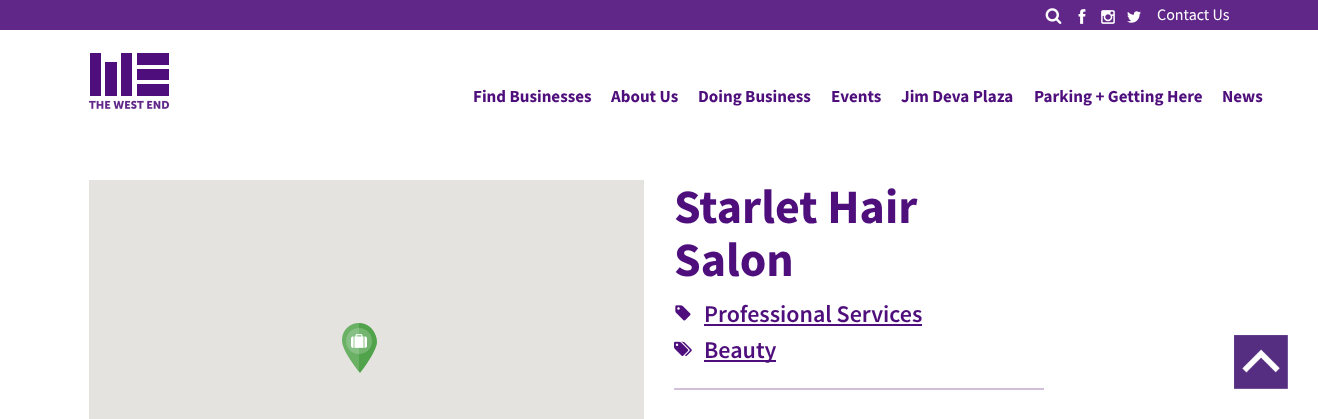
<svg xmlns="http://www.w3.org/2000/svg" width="1318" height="419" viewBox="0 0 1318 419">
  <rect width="100%" height="100%" fill="#ffffff"/>
  <rect x="0" y="0" width="1318" height="30" fill="#602789"/>
  <image x="1045" y="8" width="17" height="16" href="img1.png"/>
  <image x="1078" y="9" width="8" height="15" href="img2.png"/>
  <image x="1101" y="10" width="14" height="14" href="img3.png"/>
  <image x="1127" y="11" width="14" height="12" href="img4.png"/>
  <text x="1157" y="20" font-family="Source Sans Pro" font-size="16" fill="#ffffff">Contact Us</text>
  <image x="89" y="53" width="80" height="56" href="img5.png"/>
  <text x="473" y="102" font-family="Source Sans Pro" font-size="17" font-weight="bold" fill="#4e0e7c">Find Businesses</text>
  <text x="611" y="102" font-family="Source Sans Pro" font-size="17" font-weight="bold" fill="#4e0e7c">About Us</text>
  <text x="698" y="102" font-family="Source Sans Pro" font-size="17" font-weight="bold" fill="#4e0e7c">Doing Business</text>
  <text x="831" y="102" font-family="Source Sans Pro" font-size="17" font-weight="bold" fill="#4e0e7c">Events</text>
  <text x="901" y="102" font-family="Source Sans Pro" font-size="17" font-weight="bold" fill="#4e0e7c">Jim Deva Plaza</text>
  <text x="1034" y="102" font-family="Source Sans Pro" font-size="17" font-weight="bold" fill="#4e0e7c">Parking + Getting Here</text>
  <text x="1222" y="102" font-family="Source Sans Pro" font-size="17" font-weight="bold" fill="#4e0e7c">News</text>
  <rect x="89" y="180" width="555" height="239" fill="#e5e3df"/>
  <image x="343" y="326" width="34" height="47" href="img8.png"/>
  <image x="342" y="323" width="34" height="47" href="img6.png"/>
  <circle cx="359" cy="341" r="13" fill="#ffffff" fill-opacity="0.2"/>
  <image x="351" y="334" width="16" height="14" href="img7.png"/>
  <text x="674" y="223" font-family="Source Sans Pro" font-size="48" font-weight="bold" fill="#4e0e7c">Starlet Hair</text>
  <text x="674" y="276" font-family="Source Sans Pro" font-size="48" font-weight="bold" fill="#4e0e7c">Salon</text>
  <image x="675" y="305" width="16" height="16" href="img9.png"/>
  <text x="704" y="322" font-family="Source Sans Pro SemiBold" font-size="24" font-weight="600" fill="#4e0e7c">Professional Services</text>
  <rect x="704" y="324" width="218" height="2" fill="#4e0e7c"/>
  <image x="674" y="341" width="18" height="15" href="img10.png"/>
  <rect x="704" y="360" width="72" height="2" fill="#4e0e7c"/>
  <text x="704" y="358" font-family="Source Sans Pro SemiBold" font-size="24" font-weight="600" fill="#4e0e7c">Beauty</text>
  <rect x="674" y="388" width="370" height="2" fill="#d2bfda"/>
  <image x="1234" y="335" width="54" height="54" href="img11.png"/>
</svg>
